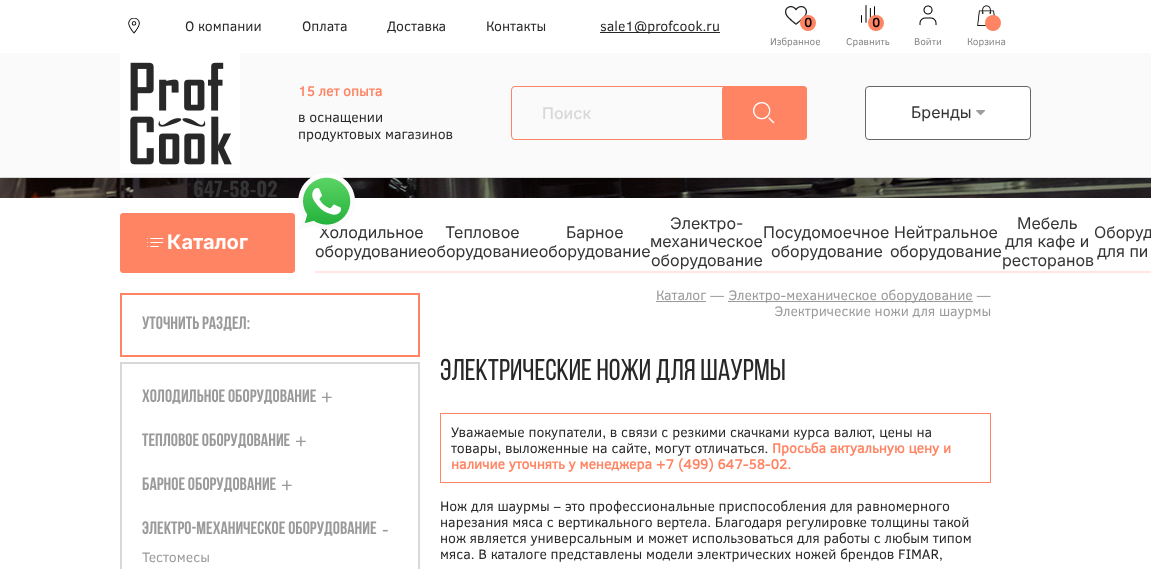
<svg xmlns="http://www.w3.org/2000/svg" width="1151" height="569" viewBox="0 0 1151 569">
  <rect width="100%" height="100%" fill="#ffffff"/>
  <image x="128" y="18" width="12" height="16" href="img1.png"/>
  <text x="185" y="31" font-family="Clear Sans" font-size="14" fill="#282828">О компании</text>
  <text x="302" y="31" font-family="Clear Sans" font-size="14" fill="#282828">Оплата</text>
  <text x="387" y="31" font-family="Clear Sans" font-size="14" fill="#282828">Доставка</text>
  <text x="486" y="31" font-family="Clear Sans" font-size="14" fill="#282828">Контакты</text>
  <rect x="600" y="32" width="120" height="1" fill="#282828"/>
  <text x="600" y="31" font-family="Clear Sans" font-size="14" fill="#282828">sale1@profcook.ru</text>
  <image x="785" y="6" width="22" height="19" href="img2.png"/>
  <circle cx="808" cy="23" r="8" fill="#ff8463"/>
  <text x="804" y="27" font-family="Clear Sans" font-size="13" font-weight="bold" fill="#000000">0</text>
  <text x="770" y="45" font-family="Clear Sans" font-size="10" fill="#858585">Избранное</text>
  <image x="861" y="5" width="14" height="18" href="img3.png"/>
  <circle cx="876" cy="23" r="8" fill="#ff8463"/>
  <text x="872" y="27" font-family="Clear Sans" font-size="13" font-weight="bold" fill="#000000">0</text>
  <text x="846" y="45" font-family="Clear Sans" font-size="10" fill="#858585">Сравнить</text>
  <image x="919" y="5" width="18" height="21" href="img4.png"/>
  <text x="914" y="45" font-family="Clear Sans" font-size="10" fill="#858585">Войти</text>
  <image x="977" y="5" width="18" height="21" href="img5.png"/>
  <circle cx="993" cy="23" r="8" fill="#ff8463"/>
  <text x="967" y="45" font-family="Clear Sans" font-size="10" fill="#858585">Корзина</text>
  <image x="0" y="178" width="1151" height="20" href="img6.png"/>
  <rect x="0" y="53" width="1151" height="124" fill="#fafafa"/>
  <rect x="0" y="177" width="1151" height="1" fill="#d7d7d7"/>
  <image x="120" y="53" width="120" height="120" href="img7.png"/>
  <text x="298" y="96" font-family="Clear Sans" font-size="14" font-weight="bold" fill="#ff8463">15 лет опыта</text>
  <text x="298" y="122" font-family="Clear Sans" font-size="14" fill="#282828">в оснащении</text>
  <text x="298" y="139" font-family="Clear Sans" font-size="14" fill="#282828">продуктовых магазинов</text>
  <rect x="511.5" y="86.5" width="295" height="53" rx="3.5" fill="none" stroke="#ff8463"/>
  <text x="542" y="119" font-family="Inter" font-size="16" font-weight="500" fill="#d8d8d8">Поиск</text>
  <rect x="722" y="86" width="85" height="54" rx="4" fill="#ff8463"/>
  <image x="753" y="102" width="22" height="22" href="img8.png"/>
  <rect x="865.5" y="86.5" width="165" height="53" rx="3.5" fill="#ffffff" stroke="#666666"/>
  <text x="911" y="118" font-family="Inter" font-size="16" fill="#343434">Бренды</text>
  <image x="976" y="110" width="10" height="6" href="img9.png"/>
  <text x="193" y="197" font-family="Oswald" font-size="20" font-weight="bold" fill="#343434">647-58-02</text>
  <text x="319" y="238" font-family="Inter" font-size="16" fill="#343434">Холодильное</text>
  <image x="298" y="173" width="57" height="57" href="img10.png"/>
  <rect x="120" y="213" width="175" height="60" rx="4" fill="#ff8463"/>
  <image x="147" y="238" width="17" height="9" href="img11.png"/>
  <rect x="121" y="214" width="173" height="58" rx="3" fill="none" stroke="#ff8463" stroke-width="2"/>
  <text x="167" y="249" font-family="Inter" font-size="20" font-weight="bold" fill="#ffffff">Каталог</text>
  <rect x="315" y="271" width="836" height="2" fill="#ffe6e0"/>
  <text x="315" y="257" font-family="Inter" font-size="16" fill="#343434">оборудованиеоборудованиеоборудование</text>
  <text x="670" y="229" font-family="Inter" font-size="16" fill="#343434">Электро-</text>
  <text x="650" y="247" font-family="Inter" font-size="16" fill="#343434">механическое</text>
  <text x="651" y="266" font-family="Inter" font-size="16" fill="#343434">оборудование</text>
  <text x="894" y="238" font-family="Inter" font-size="16" fill="#343434">Нейтральное</text>
  <text x="890" y="257" font-family="Inter" font-size="16" fill="#343434">оборудование</text>
  <text x="1017" y="229" font-family="Inter" font-size="16" fill="#343434">Мебель</text>
  <text x="1005" y="247" font-family="Inter" font-size="16" fill="#343434">для кафе и</text>
  <text x="1002" y="266" font-family="Inter" font-size="16" fill="#343434">ресторанов</text>
  <text x="445" y="238" font-family="Inter" font-size="16" fill="#343434">Тепловое</text>
  <text x="566" y="238" font-family="Inter" font-size="16" fill="#343434">Барное</text>
  <text x="763" y="238" font-family="Inter" font-size="16" fill="#343434">Посудомоечное</text>
  <text x="771" y="257" font-family="Inter" font-size="16" fill="#343434">оборудование</text>
  <text x="1094" y="238" font-family="Inter" font-size="16" fill="#343434">Оборуд</text>
  <text x="1097" y="257" font-family="Inter" font-size="16" fill="#343434">для пи</text>
  <rect x="121" y="294" width="298" height="62" fill="none" stroke="#ff8463" stroke-width="2"/>
  <text x="142" y="329" font-family="Bebas Neue" font-size="18" font-weight="bold" fill="#9a9a9a">УТОЧНИТЬ РАЗДЕЛ:</text>
  <rect x="121" y="363" width="298" height="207" fill="none" stroke="#d8d8d8" stroke-width="2"/>
  <text x="142" y="402" font-family="Bebas Neue" font-size="18" font-weight="bold" fill="#9a9a9a">ХОЛОДИЛЬНОЕ ОБОРУДОВАНИЕ</text>
  <text x="321" y="404" font-family="Liberation Sans" font-size="20" fill="#9a9a9a">+</text>
  <text x="142" y="446" font-family="Bebas Neue" font-size="18" font-weight="bold" fill="#9a9a9a">ТЕПЛОВОЕ ОБОРУДОВАНИЕ</text>
  <text x="295" y="448" font-family="Liberation Sans" font-size="20" fill="#9a9a9a">+</text>
  <text x="142" y="490" font-family="Bebas Neue" font-size="18" font-weight="bold" fill="#9a9a9a">БАРНОЕ ОБОРУДОВАНИЕ</text>
  <text x="281" y="492" font-family="Liberation Sans" font-size="20" fill="#9a9a9a">+</text>
  <text x="142" y="534" font-family="Bebas Neue" font-size="18" font-weight="bold" fill="#9a9a9a">ЭЛЕКТРО-МЕХАНИЧЕСКОЕ ОБОРУДОВАНИЕ</text>
  <text x="382" y="536" font-family="Liberation Sans" font-size="20" fill="#9a9a9a">-</text>
  <text x="142" y="562" font-family="Clear Sans" font-size="14" fill="#9a9a9a">Тестомесы</text>
  <text x="656" y="300" font-family="Clear Sans" font-size="14" fill="#9a9a9a">Каталог —</text>
  <rect x="656" y="301" width="50" height="1" fill="#9a9a9a"/>
  <rect x="728" y="301" width="245" height="1" fill="#9a9a9a"/>
  <text x="728" y="300" font-family="Clear Sans" font-size="14" fill="#9a9a9a">Электро-механическое оборудование —</text>
  <text x="774" y="316" font-family="Clear Sans" font-size="14" fill="#9a9a9a">Электрические ножи для шаурмы</text>
  <text x="440" y="380" font-family="Bebas Neue" font-size="30" fill="#282828">Электрические ножи для шаурмы</text>
  <rect x="440.5" y="413.5" width="550" height="69" fill="none" stroke="#ff8463"/>
  <text x="451" y="437" font-family="Clear Sans" font-size="14" fill="#282828">Уважаемые покупатели, в связи с резкими скачками курса валют, цены на</text>
  <text x="451" y="453" font-family="Clear Sans" font-size="14" fill="#282828">товары, выложенные на сайте, могут отличаться.</text>
  <text x="772" y="453" font-family="Clear Sans" font-size="14" font-weight="bold" fill="#ff8463">Просьба актуальную цену и</text>
  <text x="451" y="469" font-family="Clear Sans" font-size="14" font-weight="bold" fill="#ff8463">наличие уточнять у менеджера +7 (499) 647-58-02.</text>
  <text x="440" y="511" font-family="Clear Sans" font-size="14" fill="#282828">Нож для шаурмы – это профессиональные приспособления для равномерного</text>
  <text x="440" y="527" font-family="Clear Sans" font-size="14" fill="#282828">нарезания мяса с вертикального вертела. Благодаря регулировке толщины такой</text>
  <text x="440" y="543" font-family="Clear Sans" font-size="14" fill="#282828">нож является универсальным и может использоваться для работы с любым типом</text>
  <text x="440" y="559" font-family="Clear Sans" font-size="14" fill="#282828">мяса. В каталоге представлены модели электрических ножей брендов FIMAR,</text>
</svg>
